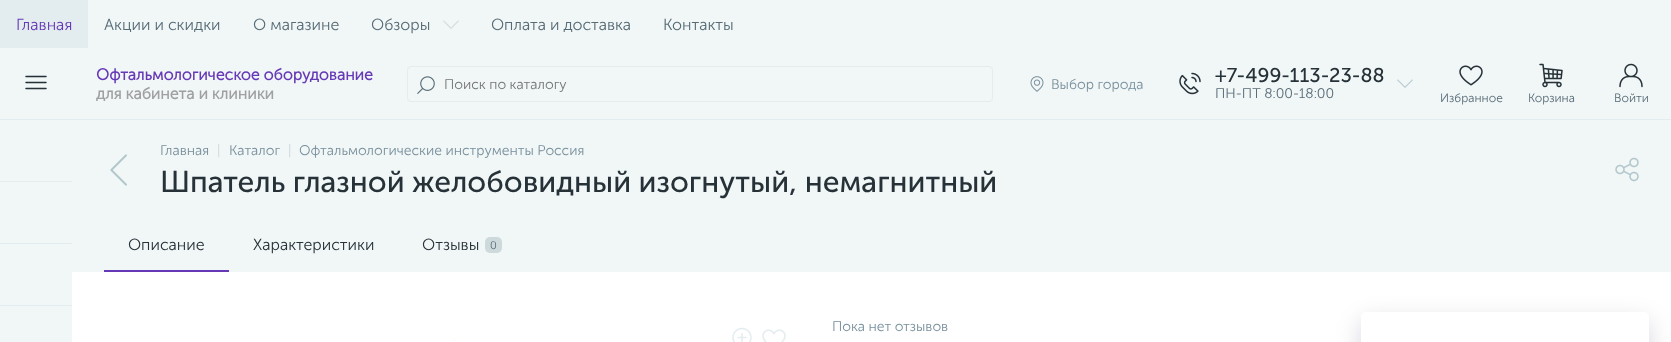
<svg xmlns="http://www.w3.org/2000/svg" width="1671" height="342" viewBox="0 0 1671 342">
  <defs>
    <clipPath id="clip1"><path d="M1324 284H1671V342H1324ZM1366 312H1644C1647 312 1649 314 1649 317V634C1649 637 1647 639 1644 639H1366C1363 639 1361 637 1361 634V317C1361 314 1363 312 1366 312Z" clip-rule="evenodd"/></clipPath>
    <filter id="blur1" x="-50%" y="-200%" width="200%" height="500%"><feGaussianBlur stdDeviation="12"/></filter>
  </defs>
  <rect width="100%" height="100%" fill="#ffffff"/>
  <rect x="88" y="0" width="1583" height="48" fill="#f1f6f7"/>
  <rect x="0" y="0" width="88" height="48" fill="#e3ecef"/>
  <text x="16" y="30" font-family="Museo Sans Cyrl" font-size="16" font-weight="300" fill="#6639b6">Главная</text>
  <text x="104" y="30" font-family="Museo Sans Cyrl" font-size="16" font-weight="300" fill="#566b75">Акции и скидки</text>
  <text x="253" y="30" font-family="Museo Sans Cyrl" font-size="16" font-weight="300" fill="#566b75">О магазине</text>
  <text x="371" y="30" font-family="Museo Sans Cyrl" font-size="16" font-weight="300" fill="#566b75">Обзоры</text>
  <image x="443" y="20" width="16" height="9" href="img1.png"/>
  <text x="491" y="30" font-family="Museo Sans Cyrl" font-size="16" font-weight="300" fill="#566b75">Оплата и доставка</text>
  <text x="663" y="30" font-family="Museo Sans Cyrl" font-size="16" font-weight="300" fill="#566b75">Контакты</text>
  <rect x="0" y="48" width="1671" height="71" fill="#f1f6f7"/>
  <image x="25" y="75" width="22" height="15" href="img2.png"/>
  <text x="96" y="80" font-family="Museo Sans Cyrl" font-size="16" font-weight="bold" fill="#6639b6">Офтальмологическое оборудование</text>
  <text x="96" y="99" font-family="Museo Sans Cyrl" font-size="16" font-weight="bold" fill="#a0a0a0">для кабинета и клиники</text>
  <rect x="407.5" y="66.5" width="585" height="35" rx="3.5" fill="none" stroke="#e3ecef"/>
  <image x="417" y="76" width="18" height="18" href="img3.png"/>
  <text x="444" y="89" font-family="Museo Sans Cyrl" font-size="14" font-weight="300" fill="#757575">Поиск по каталогу</text>
  <image x="1030" y="76" width="14" height="16" href="img4.png"/>
  <text x="1051" y="89" font-family="Museo Sans Cyrl" font-size="14" font-weight="300" fill="#78909c">Выбор города</text>
  <image x="1179" y="72" width="22" height="23" href="img5.png"/>
  <text x="1215" y="82" font-family="Museo Sans Cyrl" font-size="20" fill="#263238">+7-499-113-23-88</text>
  <text x="1215" y="98" font-family="Museo Sans Cyrl" font-size="14" font-weight="300" fill="#566b75">ПН-ПТ 8:00-18:00</text>
  <image x="1397" y="79" width="16" height="9" href="img6.png"/>
  <image x="1459" y="65" width="24" height="21" href="img7.png"/>
  <text x="1440" y="102" font-family="Museo Sans Cyrl" font-size="12" font-weight="300" fill="#566b75">Избранное</text>
  <image x="1539" y="63" width="24" height="25" href="img8.png"/>
  <text x="1528" y="102" font-family="Museo Sans Cyrl" font-size="12" font-weight="300" fill="#566b75">Корзина</text>
  <image x="1619" y="63" width="24" height="25" href="img9.png"/>
  <text x="1614" y="102" font-family="Museo Sans Cyrl" font-size="12" font-weight="300" fill="#566b75">Войти</text>
  <rect x="0" y="119" width="1671" height="1" fill="#e3ecef"/>
  <rect x="0" y="120" width="72" height="222" fill="#f1f6f7"/>
  <rect x="0" y="181" width="72" height="1" fill="#e3ecef"/>
  <rect x="0" y="243" width="72" height="1" fill="#e3ecef"/>
  <rect x="0" y="305" width="72" height="1" fill="#e3ecef"/>
  <rect x="72" y="120" width="1599" height="152" fill="#f1f6f7"/>
  <image x="110" y="154" width="17" height="32" href="img10.png"/>
  <text x="160" y="155" font-family="Museo Sans Cyrl" font-size="14" font-weight="300" fill="#78909c">Главная</text>
  <text x="217" y="155" font-family="Museo Sans Cyrl" font-size="14" font-weight="300" fill="#ced9db">|</text>
  <text x="229" y="155" font-family="Museo Sans Cyrl" font-size="14" font-weight="300" fill="#78909c">Каталог</text>
  <text x="288" y="155" font-family="Museo Sans Cyrl" font-size="14" font-weight="300" fill="#ced9db">|</text>
  <text x="299" y="155" font-family="Museo Sans Cyrl" font-size="14" font-weight="300" fill="#78909c">Офтальмологические инструменты Россия</text>
  <text x="160" y="192" font-family="Museo Sans Cyrl" font-size="30" fill="#263238">Шпатель глазной желобовидный изогнутый, немагнитный</text>
  <image x="1615" y="157" width="24" height="25" href="img11.png"/>
  <text x="128" y="250" font-family="Museo Sans Cyrl" font-size="16" font-weight="300" fill="#263238">Описание</text>
  <rect x="104" y="270" width="125" height="2" fill="#6639b6"/>
  <text x="253" y="250" font-family="Museo Sans Cyrl" font-size="16" font-weight="300" fill="#263238">Характеристики</text>
  <text x="422" y="250" font-family="Museo Sans Cyrl" font-size="16" font-weight="300" fill="#263238">Отзывы</text>
  <rect x="485" y="237" width="17" height="16" rx="5" fill="#ced9db"/>
  <text x="490" y="249" font-family="Museo Sans Cyrl" font-size="11" font-weight="300" fill="#566b75">0</text>
  <rect x="451" y="339" width="5" height="2" fill="#fdfdfb"/>
  <image x="732" y="327" width="20" height="15" href="img12.png"/>
  <image x="762" y="329" width="24" height="13" href="img13.png"/>
  <text x="832" y="331" font-family="Museo Sans Cyrl" font-size="14" font-weight="300" fill="#78909c">Пока нет отзывов</text>
  <g clip-path="url(#clip1)">
    <rect x="1361" y="321" width="288" height="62" rx="5" fill="#263238" fill-opacity="0.16" filter="url(#blur1)"/>
  </g>
</svg>
